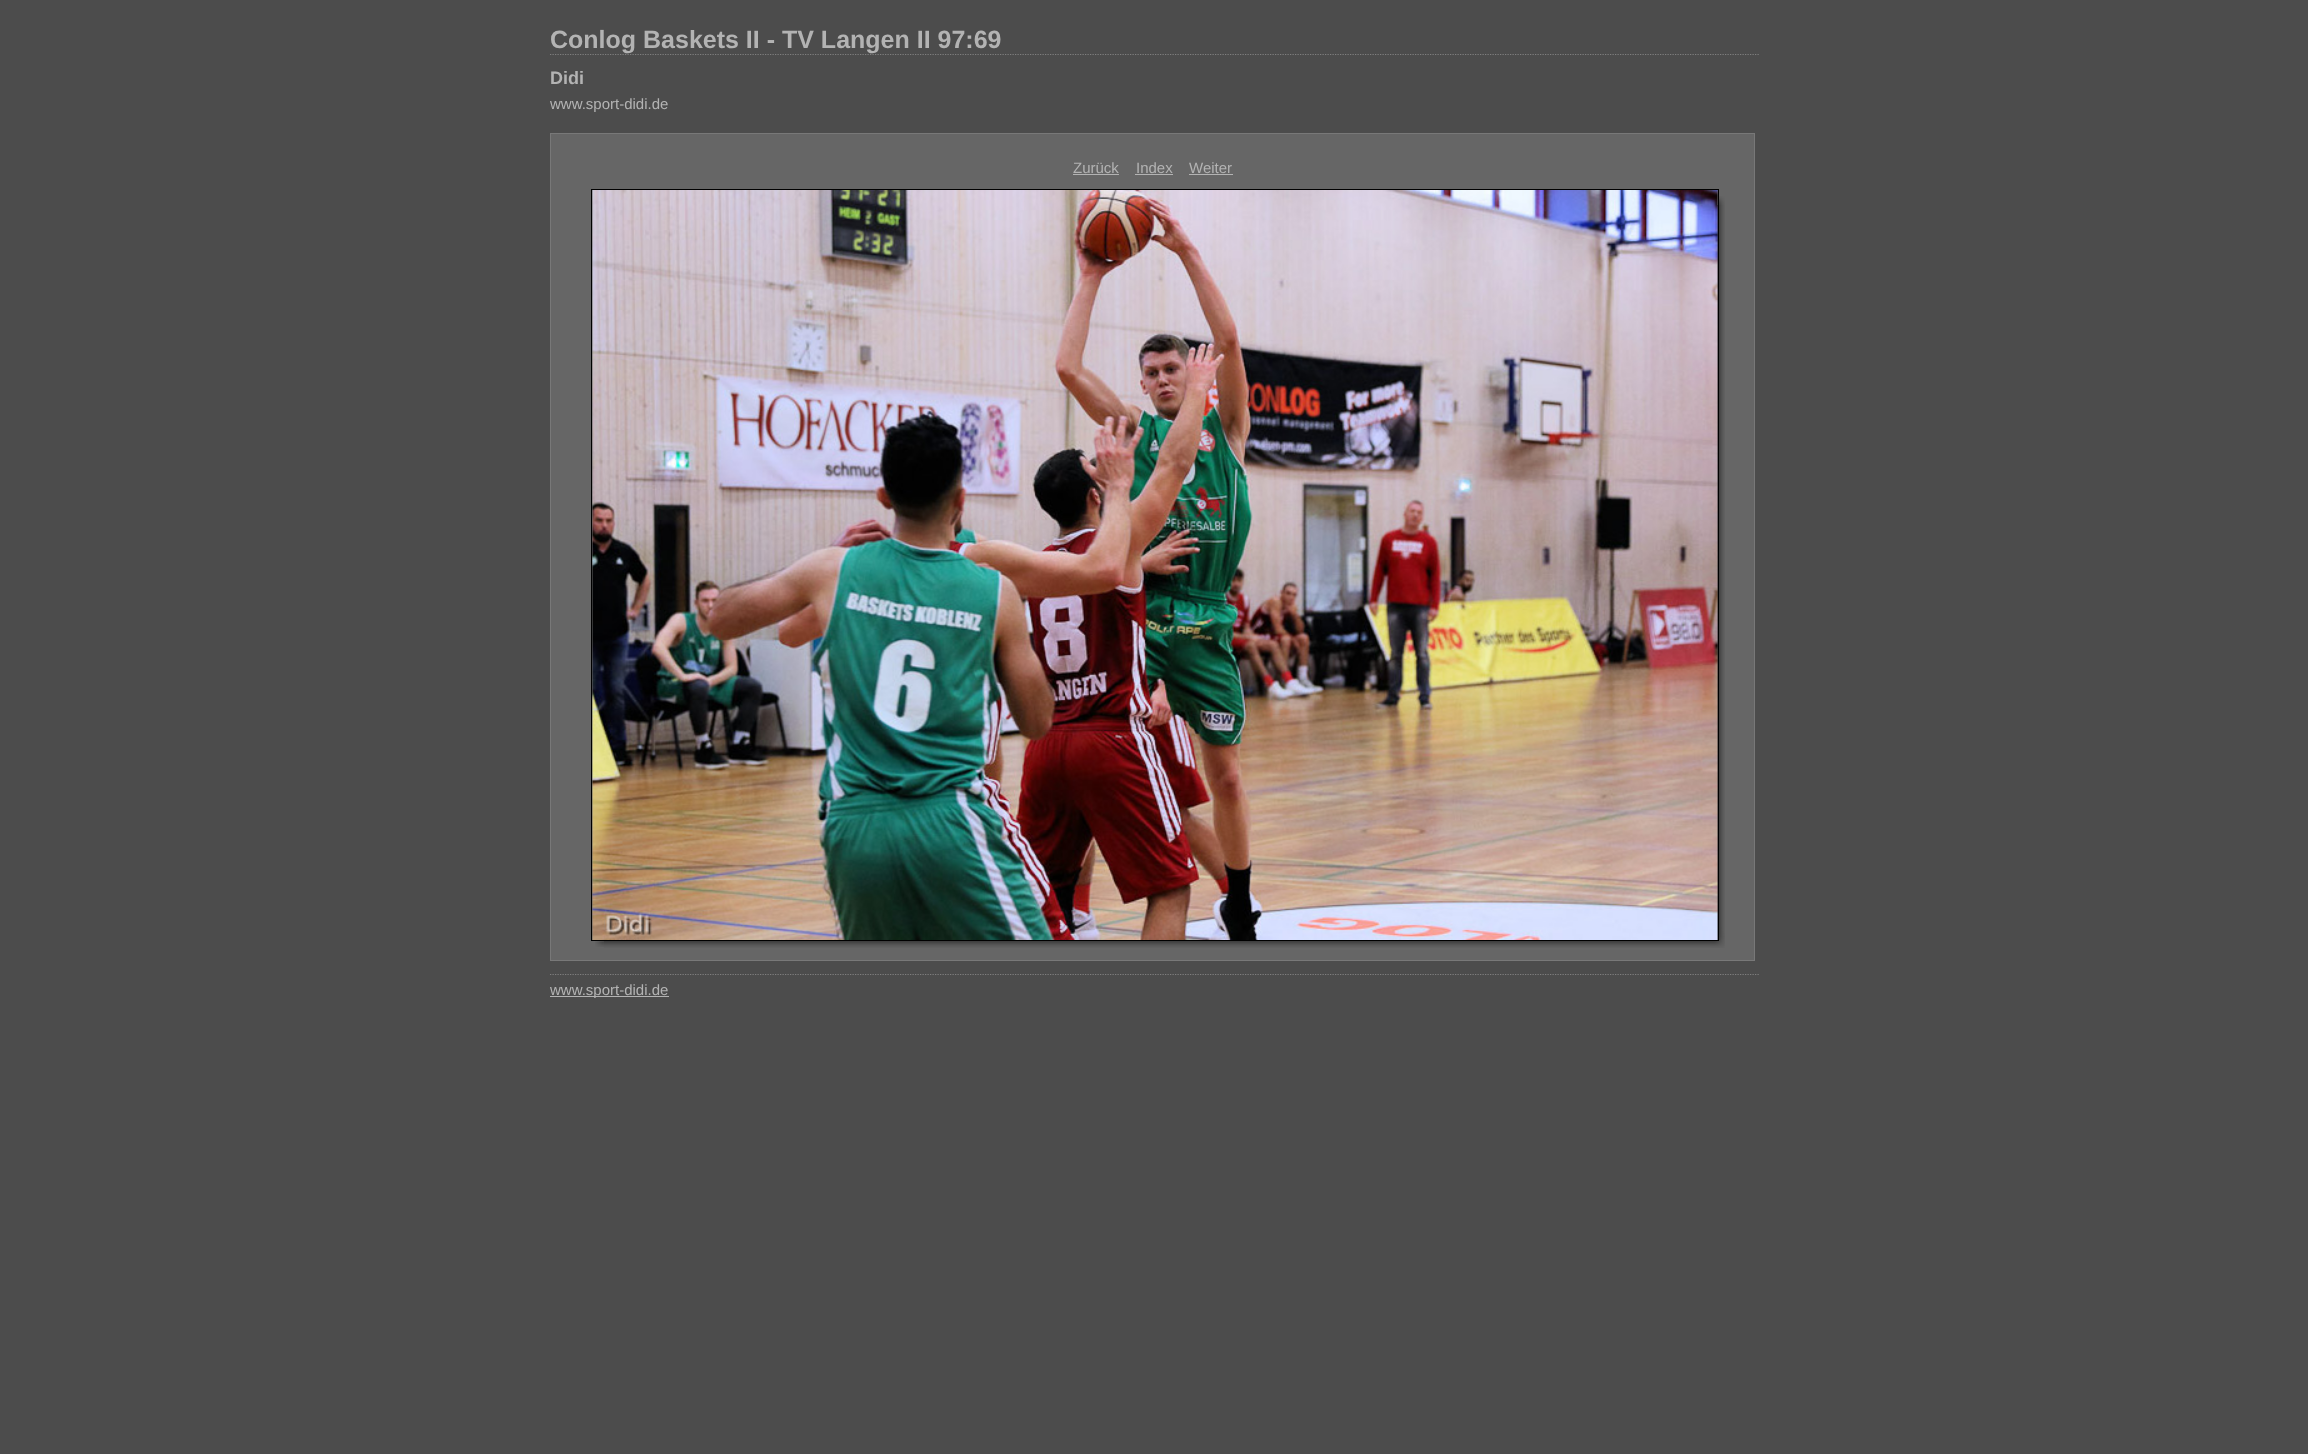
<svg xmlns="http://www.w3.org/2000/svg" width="2308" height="1454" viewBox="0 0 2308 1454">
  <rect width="100%" height="100%" fill="#4c4c4c"/>
  <path d="M550 54.5H1759" fill="none" stroke="#7f7f7f" stroke-width="1.2" stroke-dasharray="1.25 1.25"/>
  <text x="550" y="48" font-family="Liberation Sans" font-size="25" font-weight="bold" fill="#b3b3b3">Conlog Baskets II - TV Langen II 97:69</text>
  <text x="550" y="84" font-family="Liberation Sans" font-size="18" font-weight="bold" fill="#b3b3b3">Didi</text>
  <text x="550" y="109" font-family="Liberation Sans" font-size="15" fill="#b3b3b3">www.sport-didi.de</text>
  <path d="M550 974.5H1759" fill="none" stroke="#7f7f7f" stroke-width="1.2" stroke-dasharray="1.25 1.25"/>
  <rect x="550.5" y="133.5" width="1204" height="827" fill="#666666" stroke="#787878"/>
  <text x="1073" y="173" font-family="Liberation Sans" font-size="15" fill="#b3b3b3">Zurück</text>
  <rect x="1073" y="174" width="46" height="1" fill="#b3b3b3"/>
  <text x="1136" y="173" font-family="Liberation Sans" font-size="15" fill="#b3b3b3">Index</text>
  <rect x="1135" y="174" width="38" height="1" fill="#b3b3b3"/>
  <text x="1189" y="173" font-family="Liberation Sans" font-size="15" fill="#b3b3b3">Weiter</text>
  <rect x="1189" y="174" width="44" height="1" fill="#b3b3b3"/>
  <image x="603" y="205" width="1122" height="743" href="img1.png"/>
  <rect x="591.5" y="189.5" width="1127" height="751" fill="none" stroke="#000000"/>
  <image x="592" y="190" width="1126" height="750" href="img2.png"/>
  <image x="1719" y="196" width="6" height="9" href="img3.png"/>
  <image x="595" y="941" width="9" height="6" href="img4.png"/>
  <rect x="550" y="996" width="119" height="1" fill="#b3b3b3"/>
  <text x="550" y="995" font-family="Liberation Sans" font-size="15" fill="#b3b3b3">www.sport-didi.de</text>
</svg>
